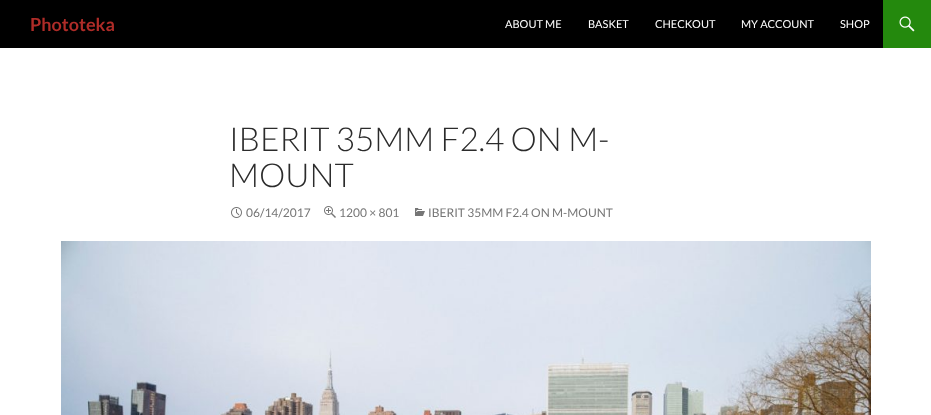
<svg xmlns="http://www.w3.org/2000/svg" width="931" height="415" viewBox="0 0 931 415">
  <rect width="100%" height="100%" fill="#ffffff"/>
  <rect x="0" y="0" width="883" height="48" fill="#000000"/>
  <text x="30" y="31" font-family="Lato" font-size="18" font-weight="bold" fill="#af2c28">Phototeka</text>
  <text x="505" y="28" font-family="Lato" font-size="11" fill="#ffffff">ABOUT ME</text>
  <text x="588" y="28" font-family="Lato" font-size="11" fill="#ffffff">BASKET</text>
  <text x="655" y="28" font-family="Lato" font-size="11" fill="#ffffff">CHECKOUT</text>
  <text x="741" y="28" font-family="Lato" font-size="11" fill="#ffffff">MY ACCOUNT</text>
  <text x="840" y="28" font-family="Lato" font-size="11" fill="#ffffff">SHOP</text>
  <rect x="883" y="0" width="48" height="48" fill="#24890d"/>
  <image x="899" y="16" width="16" height="16" href="img1.png"/>
  <text x="229" y="151" font-family="Lato" font-size="33" font-weight="300" fill="#2b2b2b">IBERIT 35MM F2.4 ON M-</text>
  <text x="229" y="187" font-family="Lato" font-size="33" font-weight="300" fill="#2b2b2b">MOUNT</text>
  <image x="231" y="207" width="11" height="11" href="img2.png"/>
  <text x="246" y="217" font-family="Lato" font-size="12" fill="#767676">06/14/2017</text>
  <image x="324" y="206" width="12" height="12" href="img3.png"/>
  <text x="339" y="217" font-family="Lato" font-size="12" fill="#767676">1200 × 801</text>
  <image x="415" y="208" width="10" height="8" href="img4.png"/>
  <text x="428" y="217" font-family="Lato" font-size="12" fill="#767676">IBERIT 35MM F2.4 ON M-MOUNT</text>
  <image x="61" y="241" width="810" height="174" href="img5.png"/>
</svg>
